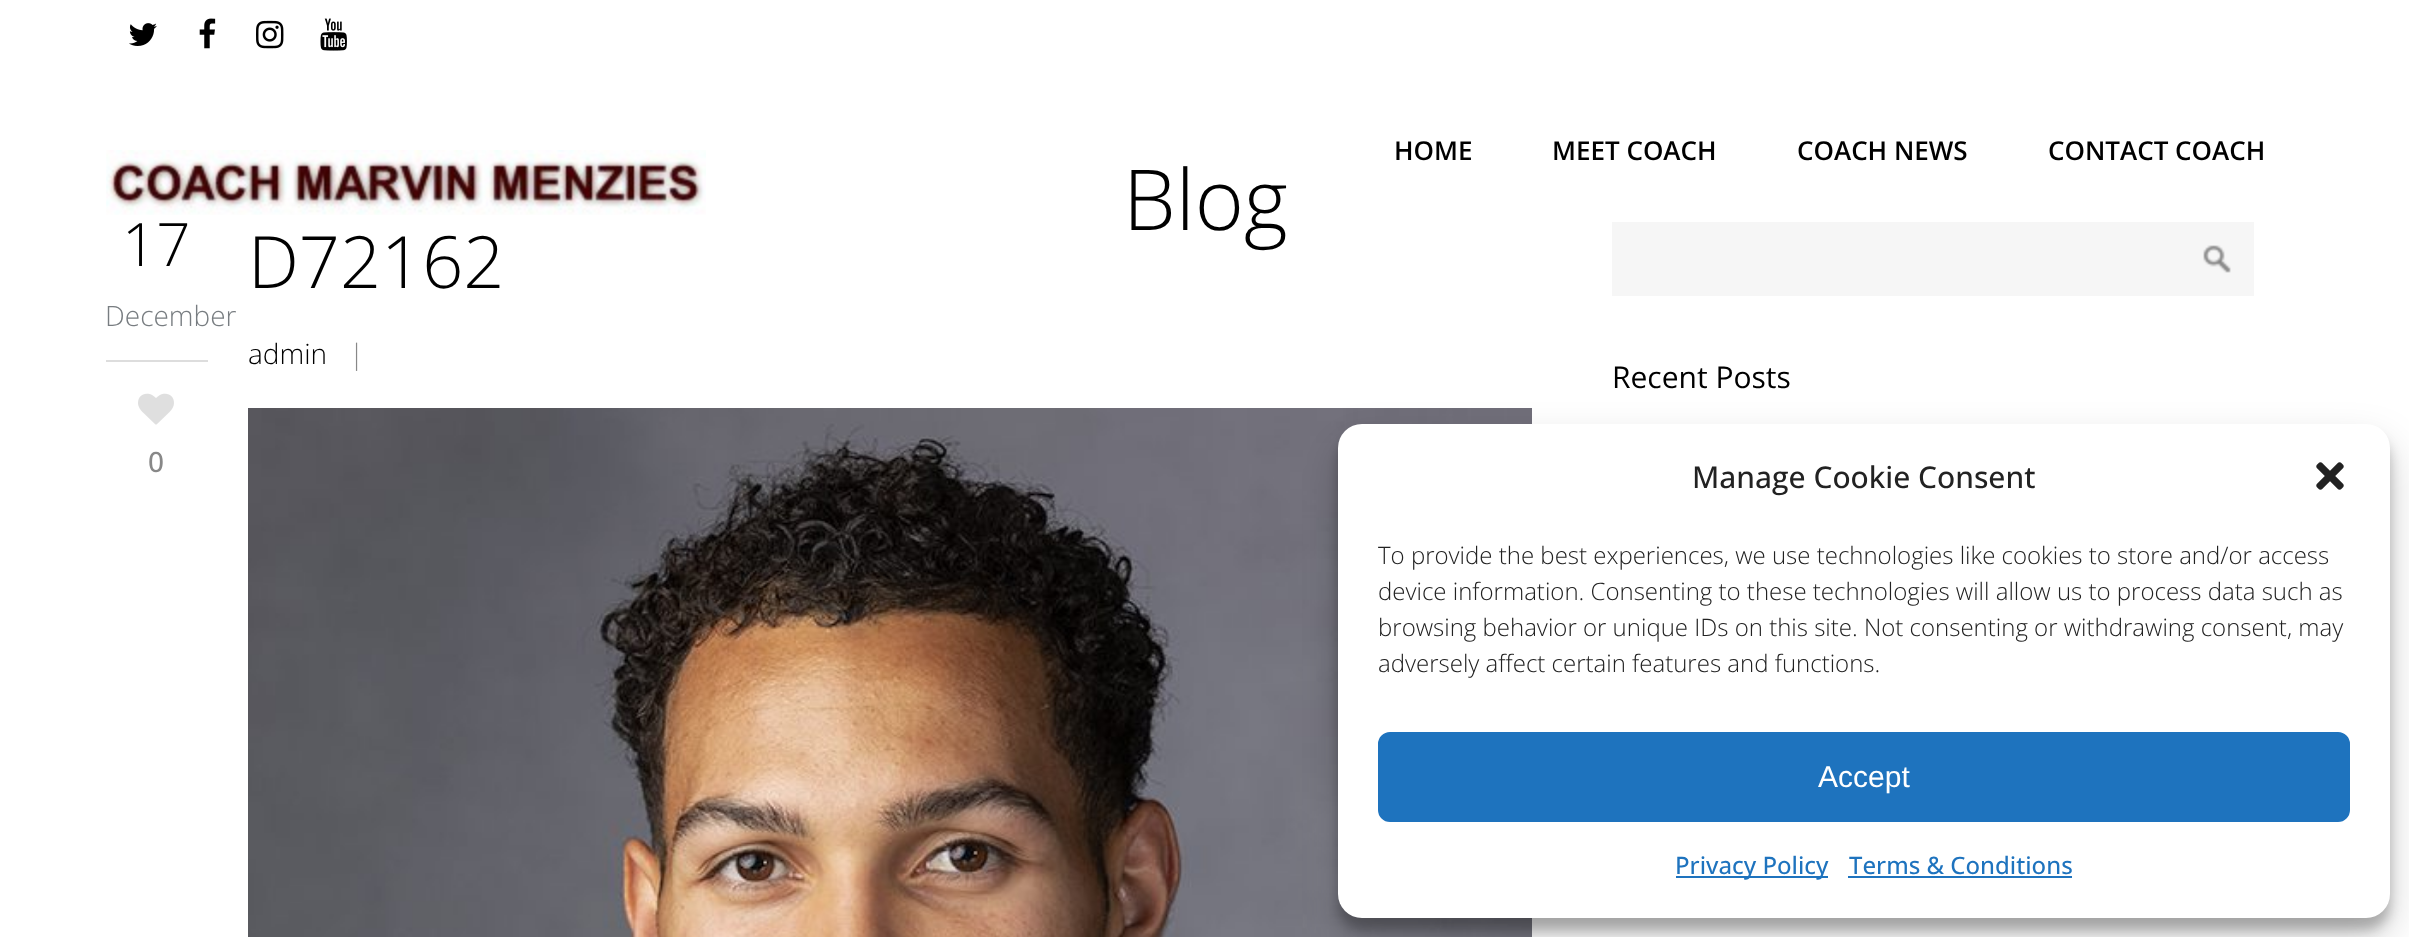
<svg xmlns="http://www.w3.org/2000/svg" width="2409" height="937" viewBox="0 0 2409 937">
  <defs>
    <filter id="blur1" x="-50%" y="-200%" width="200%" height="500%"><feGaussianBlur stdDeviation="6"/></filter>
    <filter id="blur2" x="-50%" y="-200%" width="200%" height="500%"><feGaussianBlur stdDeviation="20"/></filter>
  </defs>
  <rect width="100%" height="100%" fill="#ffffff"/>
  <image x="129" y="23" width="28" height="23" href="img1.png"/>
  <image x="199" y="18" width="17" height="31" href="img2.png"/>
  <image x="256" y="20" width="28" height="29" href="img3.png"/>
  <image x="320" y="18" width="27" height="33" href="img4.png"/>
  <image x="106" y="150" width="600" height="65" href="img5.png"/>
  <text x="1394" y="160" font-family="Open Sans" font-size="26" font-weight="600" fill="#000000">HOME</text>
  <text x="1552" y="160" font-family="Open Sans" font-size="26" font-weight="600" fill="#000000">MEET COACH</text>
  <text x="1797" y="160" font-family="Open Sans" font-size="26" font-weight="600" fill="#000000">COACH NEWS</text>
  <text x="2048" y="160" font-family="Open Sans" font-size="26" font-weight="600" fill="#000000">CONTACT COACH</text>
  <text x="1123" y="230" font-family="Open Sans" font-size="84" font-weight="300" fill="#000000">Blog</text>
  <rect x="106" y="360" width="102" height="2" fill="#dddddd"/>
  <text x="122" y="266" font-family="Open Sans" font-size="60" font-weight="300" fill="#000000">17</text>
  <text x="105" y="326" font-family="Open Sans" font-size="28" font-weight="300" fill="#787d81">December</text>
  <image x="138" y="393" width="36" height="32" href="img6.png"/>
  <text x="148" y="472" font-family="Open Sans" font-size="28" font-weight="500" fill="#888888">0</text>
  <text x="248" y="288" font-family="Open Sans" font-size="72" font-weight="300" fill="#000000">D72162</text>
  <text x="248" y="364" font-family="Open Sans" font-size="28" font-weight="300" fill="#000000">admin</text>
  <text x="349" y="364" font-family="Open Sans" font-size="28" font-weight="300" fill="#888888">|</text>
  <image x="248" y="408" width="1284" height="529" href="img7.png"/>
  <rect x="1612" y="222" width="642" height="74" fill="#f6f6f6"/>
  <image x="2203" y="245" width="28" height="28" href="img8.png"/>
  <text x="1612" y="388" font-family="Open Sans" font-size="30" fill="#000000">Recent Posts</text>
  <rect x="1338" y="436" width="1052" height="494" rx="24" fill="#000000" fill-opacity="0.23" filter="url(#blur1)"/>
  <rect x="1338" y="444" width="1052" height="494" rx="24" fill="#000000" fill-opacity="0.19" filter="url(#blur2)"/>
  <rect x="1338" y="424" width="1052" height="494" rx="24" fill="#ffffff"/>
  <text x="1692" y="488" font-family="Open Sans" font-size="30" font-weight="500" fill="#222222">Manage Cookie Consent</text>
  <image x="2316" y="462" width="28" height="28" href="img9.png"/>
  <text x="1378" y="564" font-family="Open Sans" font-size="24" font-weight="300" fill="#222222">To provide the best experiences, we use technologies like cookies to store and/or access</text>
  <text x="1378" y="600" font-family="Open Sans" font-size="24" font-weight="300" fill="#222222">device information. Consenting to these technologies will allow us to process data such as</text>
  <text x="1378" y="636" font-family="Open Sans" font-size="24" font-weight="300" fill="#222222">browsing behavior or unique IDs on this site. Not consenting or withdrawing consent, may</text>
  <text x="1378" y="672" font-family="Open Sans" font-size="24" font-weight="300" fill="#222222">adversely affect certain features and functions.</text>
  <rect x="1379" y="733" width="970" height="88" rx="11" fill="#1e73be" stroke="#1e73be" stroke-width="2"/>
  <text x="1818" y="787" font-family="Liberation Sans" font-size="30" fill="#ffffff">Accept</text>
  <rect x="1676" y="876" width="152" height="2" fill="#1e73be"/>
  <text x="1675" y="874" font-family="Open Sans" font-size="24" font-weight="500" fill="#1e73be">Privacy Policy</text>
  <text x="1849" y="874" font-family="Open Sans" font-size="24" font-weight="500" fill="#1e73be">Terms &amp; Conditions</text>
  <rect x="1848" y="876" width="224" height="2" fill="#1e73be"/>
</svg>
